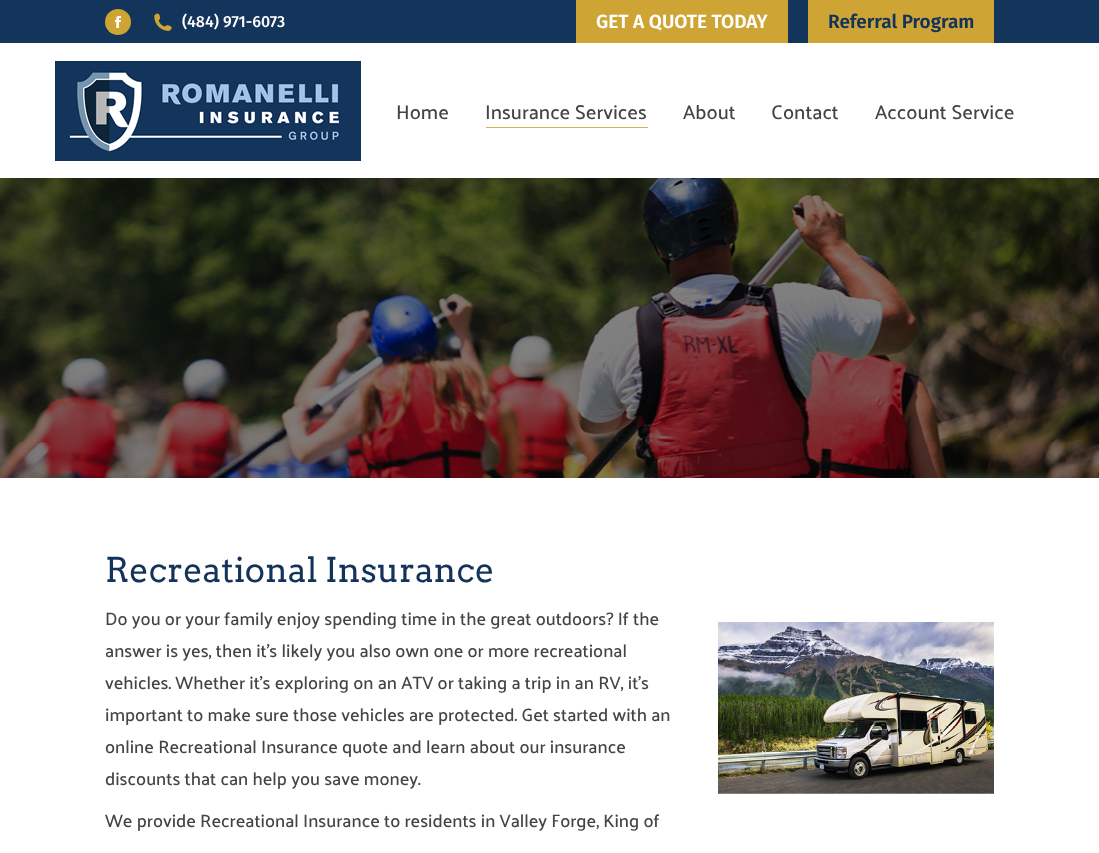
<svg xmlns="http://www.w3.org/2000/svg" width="1099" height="853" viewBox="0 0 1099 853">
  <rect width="100%" height="100%" fill="#ffffff"/>
  <rect x="0" y="0" width="1099" height="43" fill="#13345b"/>
  <circle cx="118" cy="22" r="13" fill="#cea434"/>
  <image x="115" y="16" width="6" height="12" href="img1.png"/>
  <image x="154" y="13" width="18" height="18" href="img2.png"/>
  <text x="182" y="27" font-family="Fira Sans" font-size="16" font-weight="500" fill="#ffffff">(484) 971-6073</text>
  <rect x="576" y="0" width="212" height="43" fill="#cea434"/>
  <text x="596" y="28" font-family="Fira Sans" font-size="19" font-weight="600" fill="#ffffff">GET A QUOTE TODAY</text>
  <rect x="808" y="0" width="186" height="43" fill="#cea434"/>
  <text x="828" y="28" font-family="Fira Sans" font-size="19" font-weight="600" fill="#13335a">Referral Program</text>
  <image x="55" y="61" width="306" height="100" href="img3.png"/>
  <text x="396" y="119" font-family="Palanquin" font-size="20" font-weight="500" fill="#444444">Home</text>
  <text x="485" y="119" font-family="Palanquin" font-size="20" font-weight="500" fill="#444444">Insurance Services</text>
  <rect x="486" y="127" width="162" height="1" fill="#d5b252"/>
  <text x="683" y="119" font-family="Palanquin" font-size="20" font-weight="500" fill="#444444">About</text>
  <text x="771" y="119" font-family="Palanquin" font-size="20" font-weight="500" fill="#444444">Contact</text>
  <text x="875" y="119" font-family="Palanquin" font-size="20" font-weight="500" fill="#444444">Account Service</text>
  <image x="0" y="178" width="1099" height="300" href="img4.png"/>
  <text x="105" y="582" font-family="Arvo" font-size="34" fill="#13335a">Recreational Insurance</text>
  <text x="105" y="625" font-family="Palanquin" font-size="18" font-weight="500" fill="#444444">Do you or your family enjoy spending time in the great outdoors? If the</text>
  <text x="105" y="657" font-family="Palanquin" font-size="18" font-weight="500" fill="#444444">answer is yes, then it’s likely you also own one or more recreational</text>
  <text x="105" y="689" font-family="Palanquin" font-size="18" font-weight="500" fill="#444444">vehicles. Whether it’s exploring on an ATV or taking a trip in an RV, it’s</text>
  <text x="105" y="721" font-family="Palanquin" font-size="18" font-weight="500" fill="#444444">important to make sure those vehicles are protected. Get started with an</text>
  <text x="105" y="753" font-family="Palanquin" font-size="18" font-weight="500" fill="#444444">online Recreational Insurance quote and learn about our insurance</text>
  <text x="105" y="785" font-family="Palanquin" font-size="18" font-weight="500" fill="#444444">discounts that can help you save money.</text>
  <text x="105" y="827" font-family="Palanquin" font-size="18" font-weight="500" fill="#444444">We provide Recreational Insurance to residents in Valley Forge, King of</text>
  <image x="718" y="622" width="276" height="172" href="img5.png"/>
</svg>
